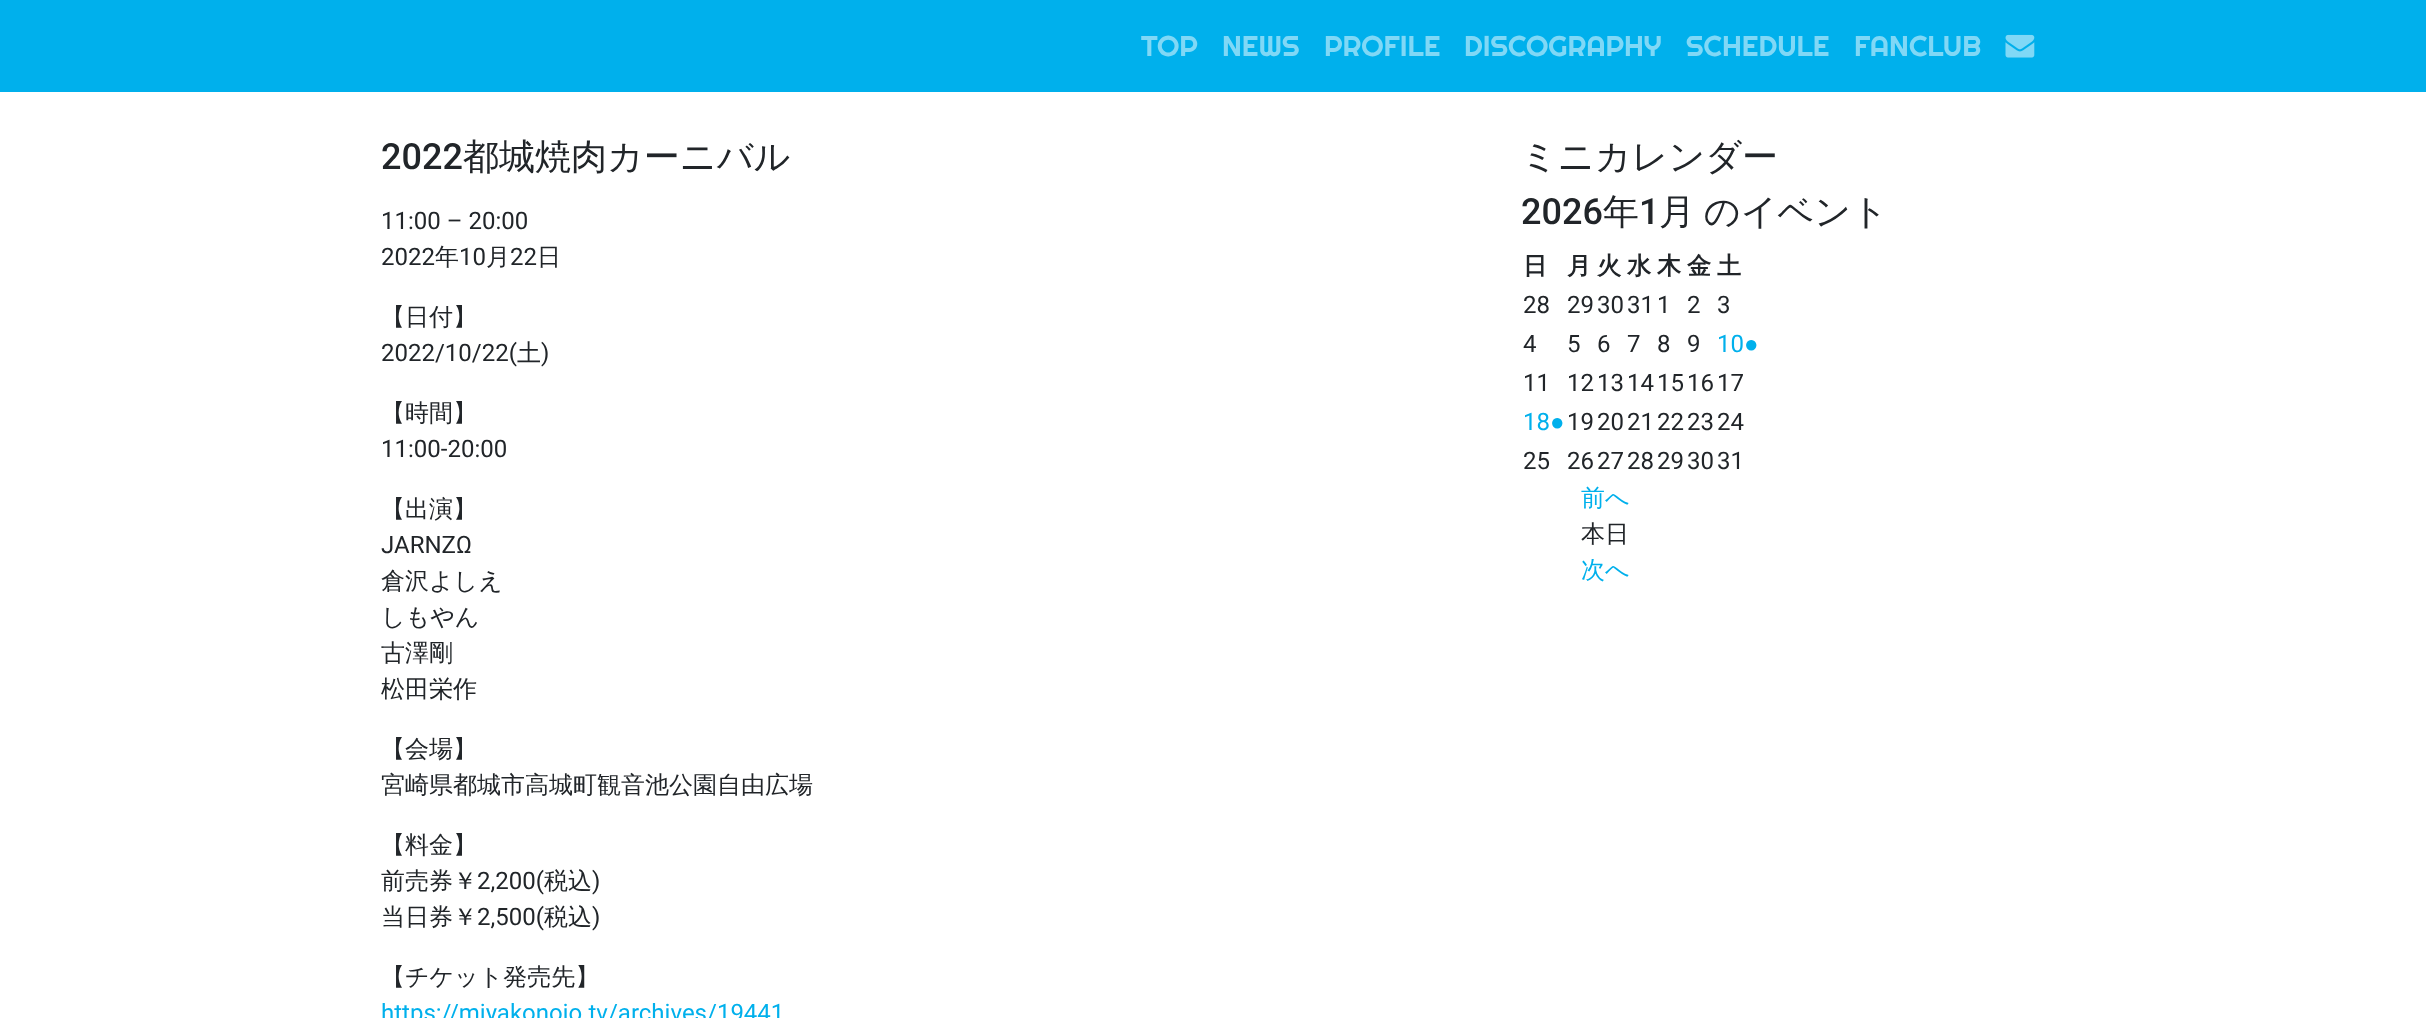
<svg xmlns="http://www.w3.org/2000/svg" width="2426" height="1018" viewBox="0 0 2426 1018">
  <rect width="100%" height="100%" fill="#ffffff"/>
  <rect x="0" y="0" width="2426" height="92" fill="#00b0ec"/>
  <text x="1141" y="56" font-family="Righteous" font-size="28.75" fill="#80d8f6">TOP</text>
  <text x="1222" y="56" font-family="Righteous" font-size="28.75" fill="#80d8f6">NEWS</text>
  <text x="1324" y="56" font-family="Righteous" font-size="28.75" fill="#80d8f6">PROFILE</text>
  <text x="1464" y="56" font-family="Righteous" font-size="28.75" fill="#80d8f6">DISCOGRAPHY</text>
  <text x="1686" y="56" font-family="Righteous" font-size="28.75" fill="#80d8f6">SCHEDULE</text>
  <text x="1854" y="56" font-family="Righteous" font-size="28.75" fill="#80d8f6">FANCLUB</text>
  <image x="2005" y="34" width="30" height="24" href="img1.png"/>
  <text x="381" y="169" font-family="Roboto" font-size="36" font-weight="500" fill="#212529">2022</text>
  <text x="463" y="169" font-family="WenQuanYi Zen Hei" font-size="36" font-weight="500" fill="#212529">都城焼肉カーニバル</text>
  <text x="381" y="229" font-family="Roboto" font-size="24" fill="#212529">11:00 – 20:00</text>
  <text x="381" y="265" font-family="Roboto" font-size="24" fill="#212529">2022</text>
  <text x="435" y="265" font-family="WenQuanYi Zen Hei" font-size="24" font-weight="500" fill="#212529">年</text>
  <text x="459" y="265" font-family="Roboto" font-size="24" fill="#212529">10</text>
  <text x="486" y="265" font-family="WenQuanYi Zen Hei" font-size="24" font-weight="500" fill="#212529">月</text>
  <text x="510" y="265" font-family="Roboto" font-size="24" fill="#212529">22</text>
  <text x="537" y="265" font-family="WenQuanYi Zen Hei" font-size="24" font-weight="500" fill="#212529">日</text>
  <text x="381" y="325" font-family="WenQuanYi Zen Hei" font-size="24" font-weight="500" fill="#212529">【日付】</text>
  <text x="381" y="361" font-family="Roboto" font-size="24" fill="#212529">2022/10/22(</text>
  <text x="517" y="361" font-family="WenQuanYi Zen Hei" font-size="24" font-weight="500" fill="#212529">土</text>
  <text x="541" y="361" font-family="Roboto" font-size="24" fill="#212529">)</text>
  <text x="381" y="421" font-family="WenQuanYi Zen Hei" font-size="24" font-weight="500" fill="#212529">【時間】</text>
  <text x="381" y="457" font-family="Roboto" font-size="24" fill="#212529">11:00-20:00</text>
  <text x="381" y="517" font-family="WenQuanYi Zen Hei" font-size="24" font-weight="500" fill="#212529">【出演】</text>
  <text x="381" y="553" font-family="Roboto" font-size="24" fill="#212529">JARNZΩ</text>
  <text x="381" y="589" font-family="WenQuanYi Zen Hei" font-size="24" font-weight="500" fill="#212529">倉沢よしえ</text>
  <text x="381" y="625" font-family="WenQuanYi Zen Hei" font-size="24" font-weight="500" fill="#212529">しもやん</text>
  <text x="381" y="661" font-family="WenQuanYi Zen Hei" font-size="24" font-weight="500" fill="#212529">古澤剛</text>
  <text x="381" y="697" font-family="WenQuanYi Zen Hei" font-size="24" font-weight="500" fill="#212529">松田栄作</text>
  <text x="381" y="757" font-family="WenQuanYi Zen Hei" font-size="24" font-weight="500" fill="#212529">【会場】</text>
  <text x="381" y="793" font-family="WenQuanYi Zen Hei" font-size="24" font-weight="500" fill="#212529">宮崎県都城市高城町観音池公園自由広場</text>
  <text x="381" y="853" font-family="WenQuanYi Zen Hei" font-size="24" font-weight="500" fill="#212529">【料金】</text>
  <text x="381" y="889" font-family="WenQuanYi Zen Hei" font-size="24" font-weight="500" fill="#212529">前売券￥</text>
  <text x="477" y="889" font-family="Roboto" font-size="24" fill="#212529">2,200(</text>
  <text x="544" y="889" font-family="WenQuanYi Zen Hei" font-size="24" font-weight="500" fill="#212529">税込</text>
  <text x="592" y="889" font-family="Roboto" font-size="24" fill="#212529">)</text>
  <text x="381" y="925" font-family="WenQuanYi Zen Hei" font-size="24" font-weight="500" fill="#212529">当日券￥</text>
  <text x="477" y="925" font-family="Roboto" font-size="24" fill="#212529">2,500(</text>
  <text x="544" y="925" font-family="WenQuanYi Zen Hei" font-size="24" font-weight="500" fill="#212529">税込</text>
  <text x="592" y="925" font-family="Roboto" font-size="24" fill="#212529">)</text>
  <text x="381" y="985" font-family="WenQuanYi Zen Hei" font-size="24" font-weight="500" fill="#212529">【チケット発売先】</text>
  <text x="381" y="1021" font-family="Roboto" font-size="24" fill="#00b0ec">https://miyakonojo.tv/archives/19441</text>
  <text x="1521" y="169" font-family="WenQuanYi Zen Hei" font-size="36" font-weight="500" fill="#212529">ミニカレンダー</text>
  <text x="1521" y="224" font-family="Roboto" font-size="36" font-weight="500" fill="#212529">2026</text>
  <text x="1603" y="224" font-family="WenQuanYi Zen Hei" font-size="36" font-weight="500" fill="#212529">年</text>
  <text x="1639" y="224" font-family="Roboto" font-size="36" font-weight="500" fill="#212529">1</text>
  <text x="1659" y="224" word-spacing="-2" font-family="WenQuanYi Zen Hei" font-size="36" font-weight="500" fill="#212529">月 のイベント</text>
  <text x="1523" y="274" font-family="WenQuanYi Zen Hei" font-size="24" font-weight="bold" fill="#212529">日</text>
  <text x="1567" y="274" font-family="WenQuanYi Zen Hei" font-size="24" font-weight="bold" fill="#212529">月</text>
  <text x="1597" y="274" font-family="WenQuanYi Zen Hei" font-size="24" font-weight="bold" fill="#212529">火</text>
  <text x="1627" y="274" font-family="WenQuanYi Zen Hei" font-size="24" font-weight="bold" fill="#212529">水</text>
  <text x="1657" y="274" font-family="WenQuanYi Zen Hei" font-size="24" font-weight="bold" fill="#212529">木</text>
  <text x="1687" y="274" font-family="WenQuanYi Zen Hei" font-size="24" font-weight="bold" fill="#212529">金</text>
  <text x="1717" y="274" font-family="WenQuanYi Zen Hei" font-size="24" font-weight="bold" fill="#212529">土</text>
  <text x="1523" y="313" font-family="Roboto" font-size="24" fill="#212529">28</text>
  <text x="1567" y="313" font-family="Roboto" font-size="24" fill="#212529">29</text>
  <text x="1597" y="313" font-family="Roboto" font-size="24" fill="#212529">30</text>
  <text x="1627" y="313" font-family="Roboto" font-size="24" fill="#212529">31</text>
  <text x="1657" y="313" font-family="Roboto" font-size="24" fill="#212529">1</text>
  <text x="1687" y="313" font-family="Roboto" font-size="24" fill="#212529">2</text>
  <text x="1717" y="313" font-family="Roboto" font-size="24" fill="#212529">3</text>
  <text x="1523" y="352" font-family="Roboto" font-size="24" fill="#212529">4</text>
  <text x="1567" y="352" font-family="Roboto" font-size="24" fill="#212529">5</text>
  <text x="1597" y="352" font-family="Roboto" font-size="24" fill="#212529">6</text>
  <text x="1627" y="352" font-family="Roboto" font-size="24" fill="#212529">7</text>
  <text x="1657" y="352" font-family="Roboto" font-size="24" fill="#212529">8</text>
  <text x="1687" y="352" font-family="Roboto" font-size="24" fill="#212529">9</text>
  <text x="1717" y="352" font-family="Roboto" font-size="24" fill="#00b0ec">10</text>
  <text x="1744" y="352" font-family="Liberation Sans" font-size="24" fill="#00b0ec">●</text>
  <text x="1523" y="391" font-family="Roboto" font-size="24" fill="#212529">11</text>
  <text x="1567" y="391" font-family="Roboto" font-size="24" fill="#212529">12</text>
  <text x="1597" y="391" font-family="Roboto" font-size="24" fill="#212529">13</text>
  <text x="1627" y="391" font-family="Roboto" font-size="24" fill="#212529">14</text>
  <text x="1657" y="391" font-family="Roboto" font-size="24" fill="#212529">15</text>
  <text x="1687" y="391" font-family="Roboto" font-size="24" fill="#212529">16</text>
  <text x="1717" y="391" font-family="Roboto" font-size="24" fill="#212529">17</text>
  <text x="1523" y="430" font-family="Roboto" font-size="24" fill="#00b0ec">18</text>
  <text x="1550" y="430" font-family="Liberation Sans" font-size="24" fill="#00b0ec">●</text>
  <text x="1567" y="430" font-family="Roboto" font-size="24" fill="#212529">19</text>
  <text x="1597" y="430" font-family="Roboto" font-size="24" fill="#212529">20</text>
  <text x="1627" y="430" font-family="Roboto" font-size="24" fill="#212529">21</text>
  <text x="1657" y="430" font-family="Roboto" font-size="24" fill="#212529">22</text>
  <text x="1687" y="430" font-family="Roboto" font-size="24" fill="#212529">23</text>
  <text x="1717" y="430" font-family="Roboto" font-size="24" fill="#212529">24</text>
  <text x="1523" y="469" font-family="Roboto" font-size="24" fill="#212529">25</text>
  <text x="1567" y="469" font-family="Roboto" font-size="24" fill="#212529">26</text>
  <text x="1597" y="469" font-family="Roboto" font-size="24" fill="#212529">27</text>
  <text x="1627" y="469" font-family="Roboto" font-size="24" fill="#212529">28</text>
  <text x="1657" y="469" font-family="Roboto" font-size="24" fill="#212529">29</text>
  <text x="1687" y="469" font-family="Roboto" font-size="24" fill="#212529">30</text>
  <text x="1717" y="469" font-family="Roboto" font-size="24" fill="#212529">31</text>
  <text x="1581" y="506" font-family="WenQuanYi Zen Hei" font-size="24" font-weight="500" fill="#00b0ec">前へ</text>
  <text x="1581" y="542" font-family="WenQuanYi Zen Hei" font-size="24" font-weight="500" fill="#212529">本日</text>
  <text x="1581" y="578" font-family="WenQuanYi Zen Hei" font-size="24" font-weight="500" fill="#00b0ec">次へ</text>
</svg>
